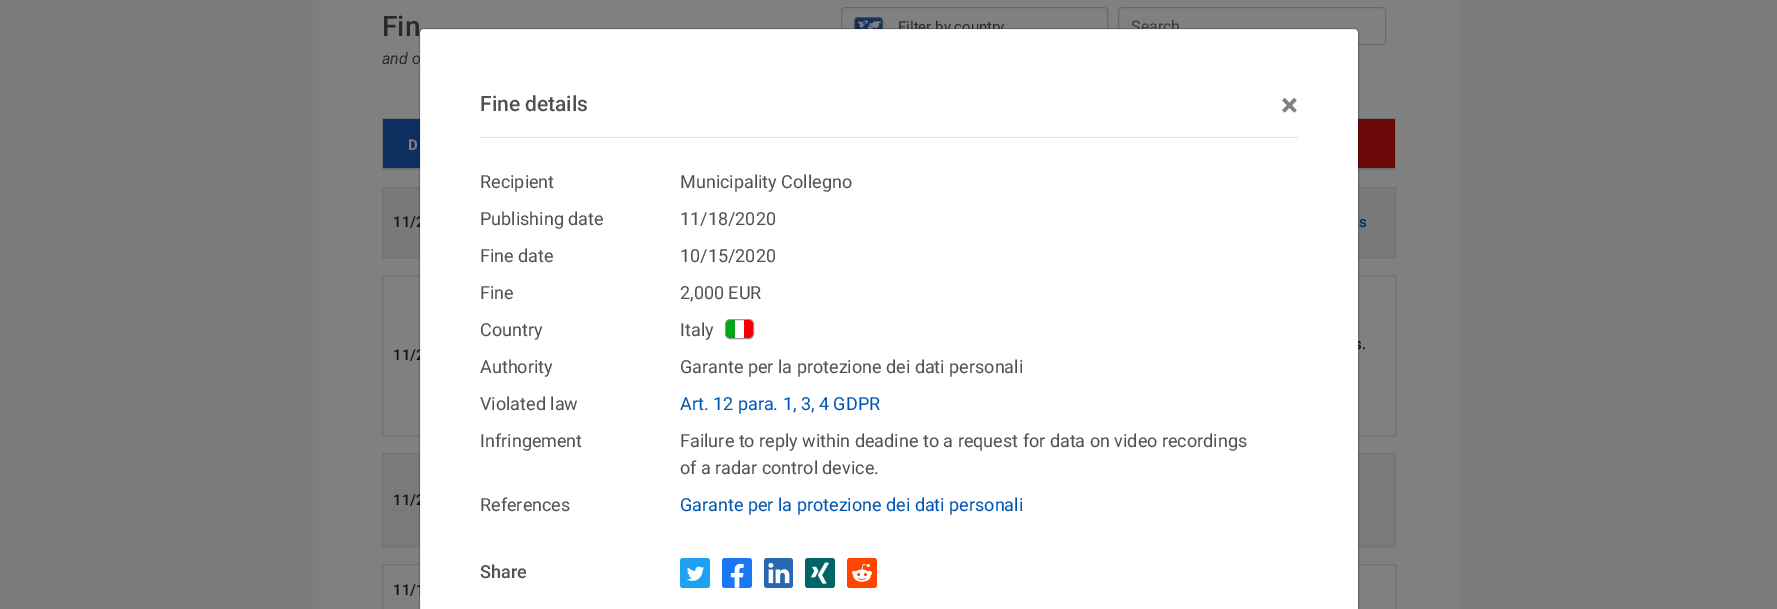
%!PS
<< /PageSize [1777 609] /PageUsesTransparency true >> setpagedevice
/mt/moveto load def
/li/lineto load def
/ct/curveto load def
/cp/closepath load def
/fl/fill load def
/st/stroke load def
/co { dup -16 bitshift 255 div exch dup -8 bitshift 255 and 255 div exch 255 and 255 div setrgbcolor } def
/fn { [ exch dup neg 0 0 3 -1 roll 0 0 ] selectfont } def
/tx { co fn moveto show } def
/bx { co rectfill } def
/al { dup .setfillconstantalpha .setstrokeconstantalpha } def
/rr { 5 dict begin { /r /h /w /y /x } { exch def } forall
  x r add y moveto x w add y 2 copy h add r arct x w add y h add x 1 index r arct
  x y h add x y r arct x y 2 copy exch w add exch r arct closepath end } def
/im { 5 dict begin { /h /w /y /x /name } { exch def } forall
  gsave x y translate w h scale
  w h 8 [w 0 0 h 0 0] name (r) file false 3 colorimage grestore end } def
0 .pushpdf14devicefilter
0 609 translate 1 -1 scale
4 setmiterlimit
0 0 1777 609 16#7B7C7C bx
319 0 1140 609 16#808080 bx
16#676A6D co
841.5 7.5 266 37 3.5 rr st
(media/1.raw) 855 18 27 11 im
16#4D4D4D co
854.5 17.5 28 19 3.5 rr st
16#676A6D co
1118.5 7.5 267 37 3.5 rr st
383 119 37 49 16#0D2F60 bx
382 118 38 1 16#6F7173 bx
382 168 38 2 16#6F7173 bx
382 118 1 52 16#6F7173 bx
1358 119 37 49 16#6A0707 bx
1358 118 38 1 16#6F7173 bx
1395 118 1 52 16#6F7173 bx
1358 168 38 2 16#6F7173 bx
383 188 1012 69 16#797979 bx
16#6F7173 co
382.5 187.5 97 70 rectstroke
912.5 187.5 483 70 rectstroke
912.5 275.5 483 160 rectstroke
382.5 275.5 97 160 rectstroke
383 454 1012 92 16#7A7A7A bx
16#6F7173 co
382.5 453.5 97 93 rectstroke
912.5 453.5 483 93 rectstroke
382.5 564.5 97 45 rectstroke
912.5 564.5 483 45 rectstroke
(Fin) 382 36 /Roboto-Medium 28 16#292929 tx
(and o) 382 64 /Roboto-Italic 16 16#292929 tx
(Filter by country) 898 32 /Roboto-Regular 15 16#292929 tx
(Search) 1131 32 /Roboto-Regular 16 16#363B3F tx
(D) 408 150 /Roboto-Bold 15 16#808080 tx
(11/2) 393 227 /Roboto-Medium 15 16#111315 tx
(s) 1359 227 /Roboto-Medium 15 16#002B5A tx
(s.) 1354 349 /Roboto-Medium 15 16#111315 tx
(11/2) 393 360 /Roboto-Medium 15 16#111315 tx
(11/2) 393 505 /Roboto-Medium 15 16#111315 tx
(11/1) 393 595 /Roboto-Medium 15 16#111315 tx
16#FFFFFF co
424 29 mt 1354 29 li 1356 29 1358 31 1358 33 ct 1358 609 li 420 609 li 420 33 li 420 31 422 29 424 29 ct cp fl
0.2 al
16#000000 co
419.5 28.5 939 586 4.5 rr st
1 al
480 137 818 1 16#DEE2E6 bx
(Fine details) 480 111 /Roboto-Medium 21 16#515151 tx
(×) 1281 116 /Roboto-Bold 32 16#808080 tx
(Recipient) 480 188 /Roboto-Regular 18 16#515151 tx
(Municipality Collegno) 680 188 /Roboto-Regular 18 16#515151 tx
(Publishing date) 480 225 /Roboto-Regular 18 16#515151 tx
(11/18/2020) 680 225 /Roboto-Regular 18 16#515151 tx
(Fine date) 480 262 /Roboto-Regular 18 16#515151 tx
(10/15/2020) 680 262 /Roboto-Regular 18 16#515151 tx
(Fine) 480 299 /Roboto-Regular 18 16#515151 tx
(2,000 EUR) 680 299 /Roboto-Regular 18 16#515151 tx
(Country) 480 336 /Roboto-Regular 18 16#515151 tx
(Italy) 680 336 /Roboto-Regular 18 16#515151 tx
16#999999 co
725.5 319.5 28 19 4.5 rr st
16#01A616 co
730 320 mt 735 320 li 735 338 li 730 338 li 728 338 726 336 726 334 ct 726 324 li 726 322 728 320 730 320 ct cp fl
16#F30004 co
744 320 mt 749 320 li 751 320 753 322 753 324 ct 753 334 li 753 336 751 338 749 338 ct 744 338 li cp fl
(Authority) 480 373 /Roboto-Regular 18 16#515151 tx
(Garante per la protezione dei dati personali) 680 373 /Roboto-Regular 18 16#515151 tx
(Violated law) 480 410 /Roboto-Regular 18 16#515151 tx
(Art. 12 para. 1, 3, 4 GDPR) 680 410 /Roboto-Regular 18 16#0056B3 tx
(Infringement) 480 447 /Roboto-Regular 18 16#515151 tx
(Failure to reply within deadine to a request for data on video recordings) 680 447 /Roboto-Regular 18 16#515151 tx
(of a radar control device.) 680 474 /Roboto-Regular 18 16#515151 tx
(References) 480 511 /Roboto-Regular 18 16#515151 tx
(Garante per la protezione dei dati personali) 680 511 /Roboto-Regular 18 16#0056B3 tx
(Share) 480 578 /Roboto-Medium 18 16#515151 tx
16#1DA1F2 co
680 558 30 30 3 rr fl
(media/2.raw) 686 566 19 15 im
16#1977F3 co
722 558 30 30 3 rr fl
(media/3.raw) 730 563 14 25 im
16#2867B2 co
764 558 29 30 3 rr fl
(media/4.raw) 768 563 22 21 im
16#006567 co
805 558 30 30 3 rr fl
(media/5.raw) 811 562 18 22 im
16#FF4500 co
847 558 30 30 3 rr fl
(media/6.raw) 852 564 20 18 im
.poppdf14devicefilter showpage
